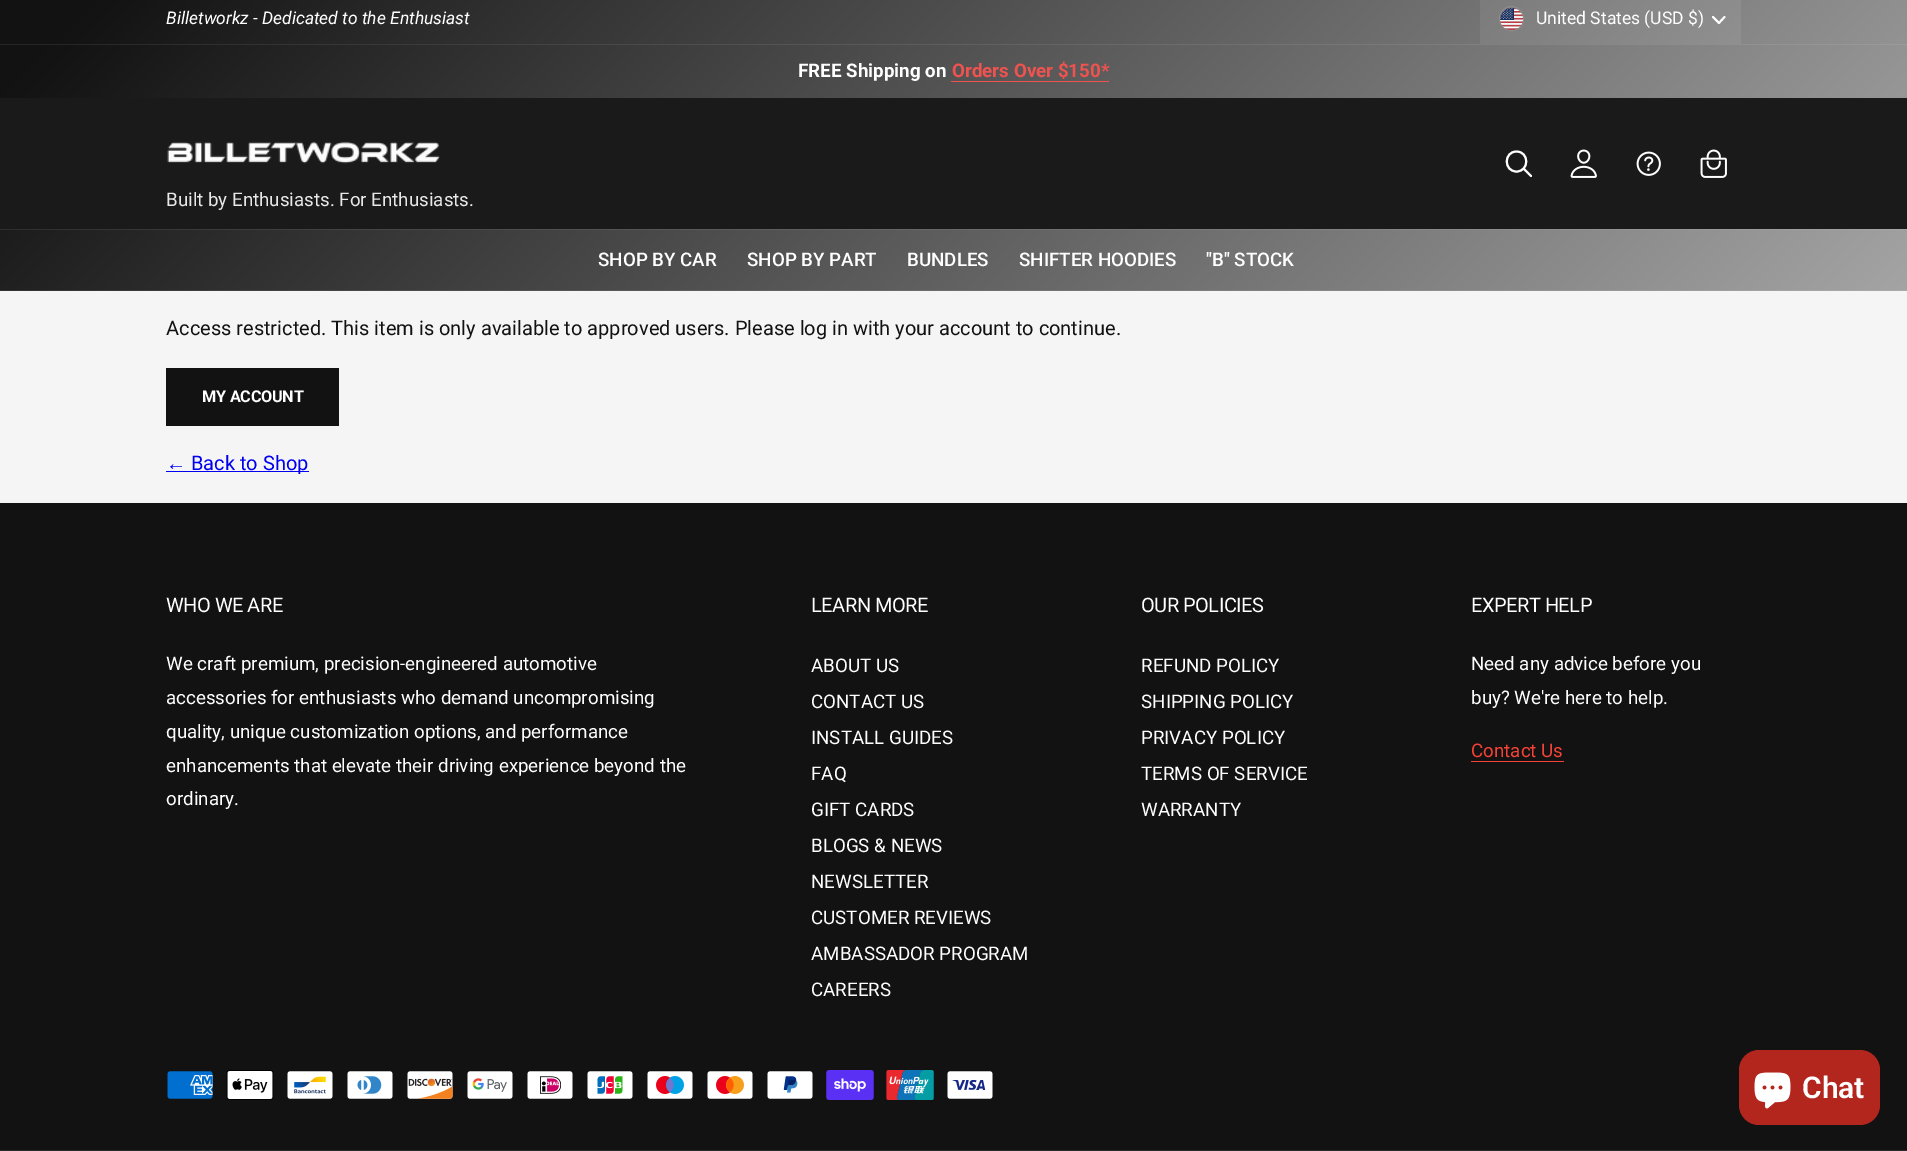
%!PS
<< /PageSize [1907 1151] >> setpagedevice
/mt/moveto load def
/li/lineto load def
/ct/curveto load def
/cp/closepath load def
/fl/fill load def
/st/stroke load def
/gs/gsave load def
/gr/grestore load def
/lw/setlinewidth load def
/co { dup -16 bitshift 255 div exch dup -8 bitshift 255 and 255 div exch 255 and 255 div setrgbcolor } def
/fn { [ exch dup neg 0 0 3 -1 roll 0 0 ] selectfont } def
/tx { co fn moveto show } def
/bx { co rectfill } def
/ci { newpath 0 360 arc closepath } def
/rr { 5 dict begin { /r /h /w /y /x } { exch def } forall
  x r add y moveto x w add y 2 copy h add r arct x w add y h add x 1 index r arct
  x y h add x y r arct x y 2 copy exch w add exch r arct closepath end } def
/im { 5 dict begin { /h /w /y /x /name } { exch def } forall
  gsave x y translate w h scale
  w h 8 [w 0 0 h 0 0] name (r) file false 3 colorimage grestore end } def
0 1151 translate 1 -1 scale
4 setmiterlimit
0 0 1907 1151 16#F5F5F5 bx
gs 0 0 mt 1907 0 li 1907 44 li 0 44 li cp clip newpath
<< /ShadingType 2 /ColorSpace /DeviceRGB /Coords [189 -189 1718 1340] /Extend [true true] /Function << /FunctionType 3 /Domain [0 1] /Functions [<< /FunctionType 2 /Domain [0 1] /C0 [.071 .071 .071] /C1 [.071 .071 .071] /N 1 >> << /FunctionType 2 /Domain [0 1] /C0 [.071 .071 .071] /C1 [.878 .878 .878] /N 1 >>] /Bounds [.03] /Encode [0 1 0 1] >> >> shfill gr
gs 1480 0 mt 1741 0 li 1741 44 li 1480 44 li cp clip newpath
<< /ShadingType 2 /ColorSpace /DeviceRGB /Coords [189 -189 1718 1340] /Extend [true true] /Function << /FunctionType 3 /Domain [0 1] /Functions [<< /FunctionType 2 /Domain [0 1] /C0 [.137 .137 .137] /C1 [.137 .137 .137] /N 1 >> << /FunctionType 2 /Domain [0 1] /C0 [.137 .137 .137] /C1 [.886 .886 .886] /N 1 >>] /Bounds [.03] /Encode [0 1 0 1] >> >> shfill gr
gs 0 44 mt 1907 44 li 1907 45 li 0 45 li cp clip newpath
<< /ShadingType 2 /ColorSpace /DeviceRGB /Coords [189 -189 1718 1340] /Extend [true true] /Function << /FunctionType 3 /Domain [0 1] /Functions [<< /FunctionType 2 /Domain [0 1] /C0 [.145 .145 .145] /C1 [.145 .145 .145] /N 1 >> << /FunctionType 2 /Domain [0 1] /C0 [.145 .145 .145] /C1 [.886 .886 .886] /N 1 >>] /Bounds [.03] /Encode [0 1 0 1] >> >> shfill gr
16#8C8C8C co
1511.5 18.5 12 ci st
(media/1.raw) 1500 8 23 22 im
16#FFFFFF co
1.9 lw
1 setlinecap
1 setlinejoin
1713 17 mt 1719 23 li 1724.5 17 li st
gs 0 45 mt 1907 45 li 1907 98 li 0 98 li cp clip newpath
<< /ShadingType 2 /ColorSpace /DeviceRGB /Coords [189 -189 1718 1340] /Extend [true true] /Function << /FunctionType 3 /Domain [0 1] /Functions [<< /FunctionType 2 /Domain [0 1] /C0 [.071 .071 .071] /C1 [.071 .071 .071] /N 1 >> << /FunctionType 2 /Domain [0 1] /C0 [.071 .071 .071] /C1 [.878 .878 .878] /N 1 >>] /Bounds [.03] /Encode [0 1 0 1] >> >> shfill gr
951 81 158 1 16#EF5350 bx
0 98 1907 131 16#1A1A1A bx
16#FFFFFF co
2 lw
0 setlinecap
0 setlinejoin
1516.5 151.5 mt 1503.5 151.5 1503.5 171.5 1516.5 171.5 ct 1529.5 171.5 1529.5 151.5 1516.5 151.5 ct cp st
1 setlinecap
1524 169 mt 1531 176 li st
(media/2.raw) 1570 149 27 29 im
(media/3.raw) 1636 151 25 25 im
(media/4.raw) 1700 149 27 29 im
(media/5.raw) 167 141 273 23 im
gs 0 230 mt 1907 230 li 1907 290 li 0 290 li cp clip newpath
<< /ShadingType 2 /ColorSpace /DeviceRGB /Coords [189 -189 1718 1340] /Extend [true true] /Function << /FunctionType 3 /Domain [0 1] /Functions [<< /FunctionType 2 /Domain [0 1] /C0 [.071 .071 .071] /C1 [.071 .071 .071] /N 1 >> << /FunctionType 2 /Domain [0 1] /C0 [.071 .071 .071] /C1 [.878 .878 .878] /N 1 >>] /Bounds [.03] /Encode [0 1 0 1] >> >> shfill gr
gs 0 290 mt 1907 290 li 1907 291 li 0 291 li cp clip newpath
<< /ShadingType 2 /ColorSpace /DeviceRGB /Coords [189 -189 1718 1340] /Extend [true true] /Function << /FunctionType 3 /Domain [0 1] /Functions [<< /FunctionType 2 /Domain [0 1] /C0 [.145 .145 .145] /C1 [.145 .145 .145] /N 1 >> << /FunctionType 2 /Domain [0 1] /C0 [.145 .145 .145] /C1 [.886 .886 .886] /N 1 >>] /Bounds [.03] /Encode [0 1 0 1] >> >> shfill gr
gs 0 229 mt 1907 229 li 1907 230 li 0 230 li cp clip newpath
<< /ShadingType 2 /ColorSpace /DeviceRGB /Coords [189 -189 1718 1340] /Extend [true true] /Function << /FunctionType 3 /Domain [0 1] /Functions [<< /FunctionType 2 /Domain [0 1] /C0 [.145 .145 .145] /C1 [.145 .145 .145] /N 1 >> << /FunctionType 2 /Domain [0 1] /C0 [.145 .145 .145] /C1 [.886 .886 .886] /N 1 >>] /Bounds [.03] /Encode [0 1 0 1] >> >> shfill gr
166 368 173 58 16#121212 bx
166 471 143 1 16#0000EE bx
0 503 1907 647 16#121212 bx
1471 761 93 1 16#F44336 bx
(media/6.raw) 167 1071 46 28 im
(media/7.raw) 226 1070 48 30 im
(media/8.raw) 287 1071 46 28 im
(media/9.raw) 347 1071 46 28 im
(media/10.raw) 407 1071 46 28 im
(media/11.raw) 467 1071 46 28 im
(media/12.raw) 527 1071 46 28 im
(media/13.raw) 587 1071 46 28 im
(media/14.raw) 647 1071 46 28 im
(media/15.raw) 707 1071 46 28 im
(media/16.raw) 767 1071 46 28 im
(media/17.raw) 826 1070 48 30 im
(media/18.raw) 886 1070 48 30 im
(media/19.raw) 947 1071 46 28 im
0 1150 1907 1 16#2C2C2C bx
16#B3261E co
1739 1050 141 75 20 rr fl
(media/20.raw) 1754 1072 37 37 im
(Billetworkz - Dedicated to the Enthusiast) 166 24 /Roboto-Italic 17.5 16#FFFFFF tx
(United States \(USD $\)) 1536 24 /Roboto-Regular 17.5 16#FFFFFF tx
(FREE Shipping on) 798 77 /Roboto-Bold 18.75 16#FFFFFF tx
(Orders Over $150*) 952 77 /Roboto-Bold 18.75 16#EF5350 tx
(Built by Enthusiasts. For Enthusiasts.) 166 206 /Roboto-Regular 18.75 16#E8E8E8 tx
(SHOP BY CAR) 598 266 /Roboto-Medium 18.75 16#FFFFFF tx
(SHOP BY PART) 747 266 /Roboto-Medium 18.75 16#FFFFFF tx
(BUNDLES) 907 266 /Roboto-Medium 18.75 16#FFFFFF tx
(SHIFTER HOODIES) 1019 266 /Roboto-Medium 18.75 16#FFFFFF tx
("B" STOCK) 1206 266 /Roboto-Medium 18.75 16#FFFFFF tx
(Access restricted. This item is only available to approved users. Please log in with your account to continue.) 166 335 /Roboto-Regular 20 16#121212 tx
/Roboto-Bold 16.25 fn
16#FFFFFF co
202 402 mt -.25 0 (MY ACCOUNT) ashow
(←) 166 470 /LiberationSans-Regular 20 16#0000EE tx
(Back to Shop) 191 470 /Roboto-Regular 20 16#0000EE tx
16#FFFFFF co
166 612 mt -.5 0 (WHO WE ARE) ashow
(We craft premium, precision-engineered automotive) 166 670 /Roboto-Regular 18.75 16#FFFFFF tx
(accessories for enthusiasts who demand uncompromising) 166 704 /Roboto-Regular 18.75 16#FFFFFF tx
(quality, unique customization options, and performance) 166 738 /Roboto-Regular 18.75 16#FFFFFF tx
(enhancements that elevate their driving experience beyond the) 166 772 /Roboto-Regular 18.75 16#FFFFFF tx
(ordinary.) 166 805 /Roboto-Regular 18.75 16#FFFFFF tx
/Roboto-Regular 20 fn
811 612 mt -.5 0 (LEARN MORE) ashow
(ABOUT US) 811 672 /Roboto-Regular 18.75 16#FFFFFF tx
(CONTACT US) 811 708 /Roboto-Regular 18.75 16#FFFFFF tx
(INSTALL GUIDES) 811 744 /Roboto-Regular 18.75 16#FFFFFF tx
(FAQ) 811 780 /Roboto-Regular 18.75 16#FFFFFF tx
(GIFT CARDS) 811 816 /Roboto-Regular 18.75 16#FFFFFF tx
(BLOGS & NEWS) 811 852 /Roboto-Regular 18.75 16#FFFFFF tx
(NEWSLETTER) 811 888 /Roboto-Regular 18.75 16#FFFFFF tx
(CUSTOMER REVIEWS) 811 924 /Roboto-Regular 18.75 16#FFFFFF tx
(AMBASSADOR PROGRAM) 811 960 /Roboto-Regular 18.75 16#FFFFFF tx
(CAREERS) 811 996 /Roboto-Regular 18.75 16#FFFFFF tx
/Roboto-Regular 20 fn
1141 612 mt -.5 0 (OUR POLICIES) ashow
(REFUND POLICY) 1141 672 /Roboto-Regular 18.75 16#FFFFFF tx
(SHIPPING POLICY) 1141 708 /Roboto-Regular 18.75 16#FFFFFF tx
(PRIVACY POLICY) 1141 744 /Roboto-Regular 18.75 16#FFFFFF tx
(TERMS OF SERVICE) 1141 780 /Roboto-Regular 18.75 16#FFFFFF tx
(WARRANTY) 1141 816 /Roboto-Regular 18.75 16#FFFFFF tx
/Roboto-Regular 20 fn
1471 612 mt -.5 0 (EXPERT HELP) ashow
(Need any advice before you) 1471 670 /Roboto-Regular 18.75 16#FFFFFF tx
(buy? We're here to help.) 1471 704 /Roboto-Regular 18.75 16#FFFFFF tx
(Contact Us) 1471 757 /Roboto-Regular 18.75 16#F44336 tx
(Chat) 1802 1098 /Roboto-SemiBold 30 16#FFFFFF tx
showpage
